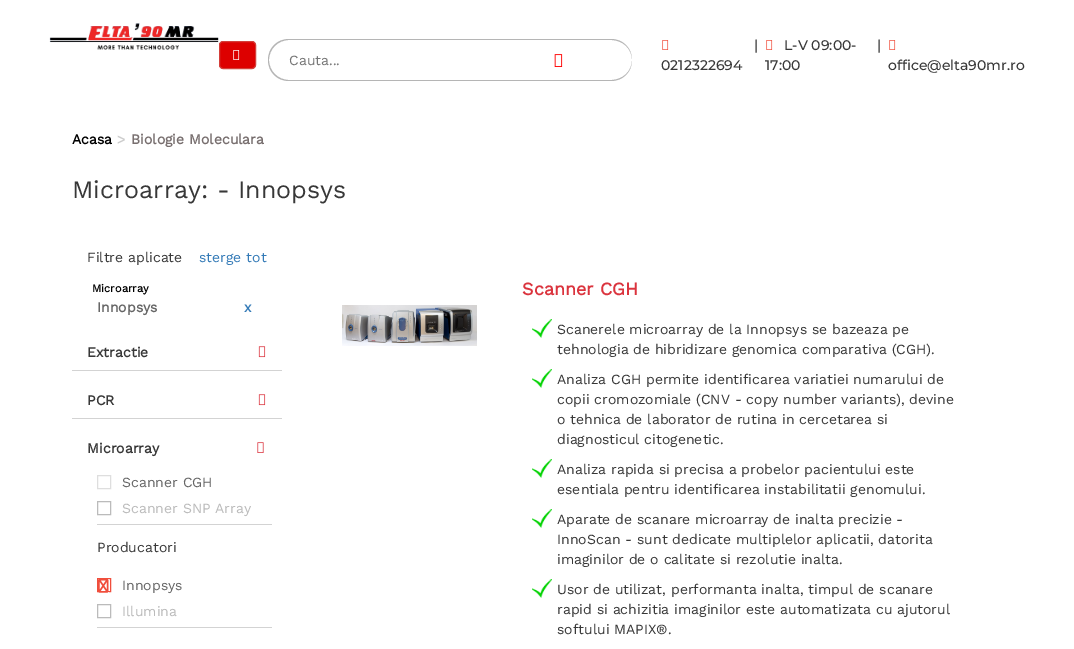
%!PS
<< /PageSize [1074 649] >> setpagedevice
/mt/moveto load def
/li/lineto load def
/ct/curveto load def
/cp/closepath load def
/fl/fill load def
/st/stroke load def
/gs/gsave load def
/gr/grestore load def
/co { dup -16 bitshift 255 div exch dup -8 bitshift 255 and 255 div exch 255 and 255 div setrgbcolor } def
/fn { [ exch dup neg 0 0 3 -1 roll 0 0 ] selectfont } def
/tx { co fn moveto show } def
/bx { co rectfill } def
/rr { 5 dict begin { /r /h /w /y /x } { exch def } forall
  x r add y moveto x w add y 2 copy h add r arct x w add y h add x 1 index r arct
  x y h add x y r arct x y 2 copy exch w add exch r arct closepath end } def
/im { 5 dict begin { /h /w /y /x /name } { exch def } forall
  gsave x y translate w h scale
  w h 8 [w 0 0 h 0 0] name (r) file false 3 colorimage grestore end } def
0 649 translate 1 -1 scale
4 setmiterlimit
0 0 1074 649 16#FFFFFF bx
(media/1.raw) 49 23 170 27 im
16#DD0000 co
219.5 41.5 36 27 3.5 rr gs fl gr
16#D43F3A co
st
(media/2.raw) 233 50 7 10 im
16#B5B5B5 co
289 39 mt 611 39 li 623 39 632 48 632 60 ct 632 72 623 81 611 81 ct 289 81 li 277 81 268 72 268 60 ct 268 48 277 39 289 39 ct cp 289 40 mt 611 40 li 623 40 632 49 632 60 ct 632 71 623 80 611 80 ct 289 80 li 278 80 269 71 269 60 ct 269 49 278 40 289 40 ct cp eofill
(media/3.raw) 554 54 9 13 im
(media/4.raw) 662 40 7 10 im
(media/4.raw) 766 40 7 10 im
(media/4.raw) 889 40 7 10 im
72 370 210 1 16#D3D3D3 bx
(media/5.raw) 258 346 8 12 im
72 418 210 1 16#D3D3D3 bx
(media/5.raw) 258 394 8 12 im
(media/6.raw) 257 442 7 11 im
16#DEDEDE co
97.5 475.5 13 13 rectstroke
16#BBBBBB co
97.5 501.5 13 13 rectstroke
97 524 175 1 16#D3D3D3 bx
16#F04E3C co
97.5 578.5 13 13 rectstroke
(media/7.raw) 98 579 11 14 im
16#BBBBBB co
97.5 604.5 13 13 rectstroke
97 627 175 1 16#D3D3D3 bx
(media/8.raw) 342 305 135 41 im
(media/9.raw) 532 319 20 19 im
(media/9.raw) 532 369 20 19 im
(media/9.raw) 532 459 20 19 im
(media/9.raw) 532 509 20 19 im
(media/9.raw) 532 579 20 19 im
(Cauta...) 289 65 /WorkSans-Regular 14 16#757575 tx
(0212322694) 661 70 /Montserrat-Thin 14 16#383838 tx
(|) 754 50 /Montserrat-Thin 14 16#383838 tx
(L-V 09:00-) 784 50 /Montserrat-Thin 14 16#383838 tx
(17:00) 765 70 /Montserrat-Thin 14 16#383838 tx
(|) 877 50 /Montserrat-Thin 14 16#383838 tx
(office@elta90mr.ro) 888 70 /Montserrat-Thin 14 16#383838 tx
(Acasa) 72 144 /WorkSans-Bold 14 16#000000 tx
(>) 117 144 /WorkSans-Bold 14 16#CCCCCC tx
(Biologie Moleculara) 131 144 /WorkSans-Bold 14 16#786F6F tx
(Microarray: - Innopsys) 72 198 /WorkSans-Regular 25 16#383838 tx
(Filtre aplicate) 87 262 /WorkSans-Regular 14 16#383838 tx
(sterge tot) 199 262 /WorkSans-Regular 14 16#337AB7 tx
(Microarray) 92 292 /WorkSans-Bold 11 16#000000 tx
(Innopsys) 97 312 /WorkSans-Bold 14 16#666666 tx
(x) 244 312 /WorkSans-Bold 14 16#337AB7 tx
(Extractie) 87 357 /WorkSans-Bold 14 16#383838 tx
(PCR) 87 405 /WorkSans-Bold 14 16#383838 tx
(Microarray) 87 453 /WorkSans-Bold 14 16#383838 tx
(Scanner CGH) 122 487 /WorkSans-Regular 14 16#666666 tx
(Scanner SNP Array) 122 513 /WorkSans-Regular 14 16#BBBBBB tx
(Producatori) 97 552 /WorkSans-Regular 14 16#383838 tx
(Innopsys) 122 590 /WorkSans-Regular 14 16#666666 tx
(Illumina) 122 616 /WorkSans-Regular 14 16#BBBBBB tx
(Scanner CGH) 522 295 /WorkSans-Bold 18 16#DB343E tx
(Scanerele microarray de la Innopsys se bazeaza pe) 557 334 /WorkSans-Regular 14 16#383838 tx
(tehnologia de hibridizare genomica comparativa \(CGH\).) 557 354 /WorkSans-Regular 14 16#383838 tx
(Analiza CGH permite identificarea variatiei numarului de) 557 384 /WorkSans-Regular 14 16#383838 tx
(copii cromozomiale \(CNV - copy number variants\), devine) 557 404 /WorkSans-Regular 14 16#383838 tx
(o tehnica de laborator de rutina in cercetarea si) 557 424 /WorkSans-Regular 14 16#383838 tx
(diagnosticul citogenetic.) 557 444 /WorkSans-Regular 14 16#383838 tx
(Analiza rapida si precisa a probelor pacientului este) 557 474 /WorkSans-Regular 14 16#383838 tx
(esentiala pentru identificarea instabilitatii genomului.) 557 494 /WorkSans-Regular 14 16#383838 tx
(Aparate de scanare microarray de inalta precizie -) 557 524 /WorkSans-Regular 14 16#383838 tx
(InnoScan - sunt dedicate multiplelor aplicatii, datorita) 557 544 /WorkSans-Regular 14 16#383838 tx
(imaginilor de o calitate si rezolutie inalta.) 557 564 /WorkSans-Regular 14 16#383838 tx
(Usor de utilizat, performanta inalta, timpul de scanare) 557 594 /WorkSans-Regular 14 16#383838 tx
(rapid si achizitia imaginilor este automatizata cu ajutorul) 557 614 /WorkSans-Regular 14 16#383838 tx
(softului MAPIX®.) 557 634 /WorkSans-Regular 14 16#383838 tx
showpage
